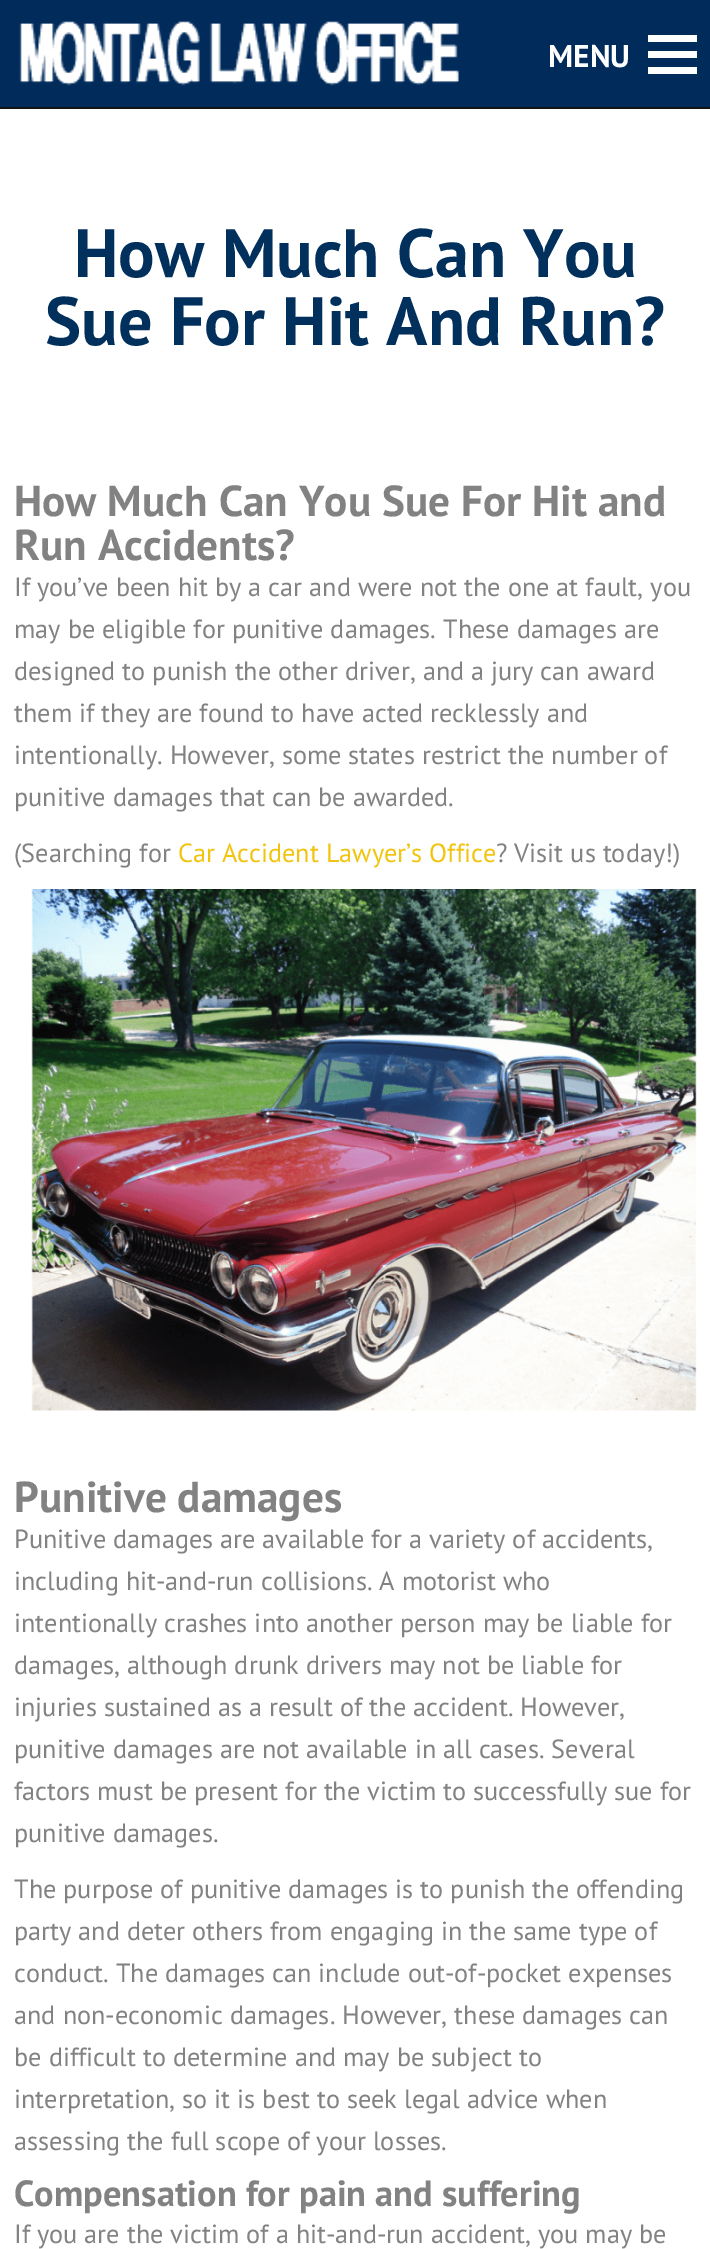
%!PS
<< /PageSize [710 2249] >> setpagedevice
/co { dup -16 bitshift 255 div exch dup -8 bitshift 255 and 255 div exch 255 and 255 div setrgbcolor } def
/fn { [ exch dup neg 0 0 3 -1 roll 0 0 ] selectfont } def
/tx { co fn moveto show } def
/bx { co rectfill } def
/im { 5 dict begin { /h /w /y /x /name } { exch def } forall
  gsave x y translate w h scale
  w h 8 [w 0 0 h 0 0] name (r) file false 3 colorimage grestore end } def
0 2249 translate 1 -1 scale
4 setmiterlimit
0 0 710 2249 16#FFFFFF bx
0 0 710 107 16#002B5B bx
0 107 710 2 16#141414 bx
(media/1.raw) 19 21 440 65 im
648 35 49 7 16#FFFFFF bx
648 51 49 7 16#FFFFFF bx
648 67 49 7 16#FFFFFF bx
(media/2.raw) 31 889 666 522 im
(MENU) 548 67 /PTSans-Bold 31.5 16#FFFFFF tx
(How Much Can You) 74 277 /PTSans-Bold 68.25 16#02305D tx
(Sue For Hit And Run?) 45 345 /PTSans-Bold 68.25 16#02305D tx
(How Much Can You Sue For Hit and) 14 516 /PTSans-Bold 43.25 16#828282 tx
(Run Accidents?) 14 560 /PTSans-Bold 43.25 16#828282 tx
(If you’ve been hit by a car and were not the one at fault, you) 14 596 /PTSans-Regular 26.25 16#828282 tx
(may be eligible for punitive damages. These damages are) 14 638 /PTSans-Regular 26.25 16#828282 tx
(designed to punish the other driver, and a jury can award) 14 680 /PTSans-Regular 26.25 16#828282 tx
(them if they are found to have acted recklessly and) 14 722 /PTSans-Regular 26.25 16#828282 tx
(intentionally. However, some states restrict the number of) 14 764 /PTSans-Regular 26.25 16#828282 tx
(punitive damages that can be awarded.) 14 806 /PTSans-Regular 26.25 16#828282 tx
(\(Searching for) 14 862 /PTSans-Regular 26.25 16#828282 tx
(Car Accident Lawyer’s Office) 178 862 /PTSans-Regular 26.25 16#F1C40F tx
(? Visit us today!\)) 496 862 /PTSans-Regular 26.25 16#828282 tx
(Punitive damages) 14 1512 /PTSans-Bold 43.25 16#828282 tx
(Punitive damages are available for a variety of accidents,) 14 1548 /PTSans-Regular 26.25 16#828282 tx
(including hit-and-run collisions. A motorist who) 14 1590 /PTSans-Regular 26.25 16#828282 tx
(intentionally crashes into another person may be liable for) 14 1632 /PTSans-Regular 26.25 16#828282 tx
(damages, although drunk drivers may not be liable for) 14 1674 /PTSans-Regular 26.25 16#828282 tx
(injuries sustained as a result of the accident. However,) 14 1716 /PTSans-Regular 26.25 16#828282 tx
(punitive damages are not available in all cases. Several) 14 1758 /PTSans-Regular 26.25 16#828282 tx
(factors must be present for the victim to successfully sue for) 14 1800 /PTSans-Regular 26.25 16#828282 tx
(punitive damages.) 14 1842 /PTSans-Regular 26.25 16#828282 tx
(The purpose of punitive damages is to punish the offending) 14 1898 /PTSans-Regular 26.25 16#828282 tx
(party and deter others from engaging in the same type of) 14 1940 /PTSans-Regular 26.25 16#828282 tx
(conduct. The damages can include out-of-pocket expenses) 14 1982 /PTSans-Regular 26.25 16#828282 tx
(and non-economic damages. However, these damages can) 14 2024 /PTSans-Regular 26.25 16#828282 tx
(be difficult to determine and may be subject to) 14 2066 /PTSans-Regular 26.25 16#828282 tx
(interpretation, so it is best to seek legal advice when) 14 2108 /PTSans-Regular 26.25 16#828282 tx
(assessing the full scope of your losses.) 14 2150 /PTSans-Regular 26.25 16#828282 tx
(Compensation for pain and suffering) 14 2206 /PTSans-Bold 36.4 16#828282 tx
(If you are the victim of a hit-and-run accident, you may be) 14 2243 /PTSans-Regular 26.25 16#828282 tx
showpage
